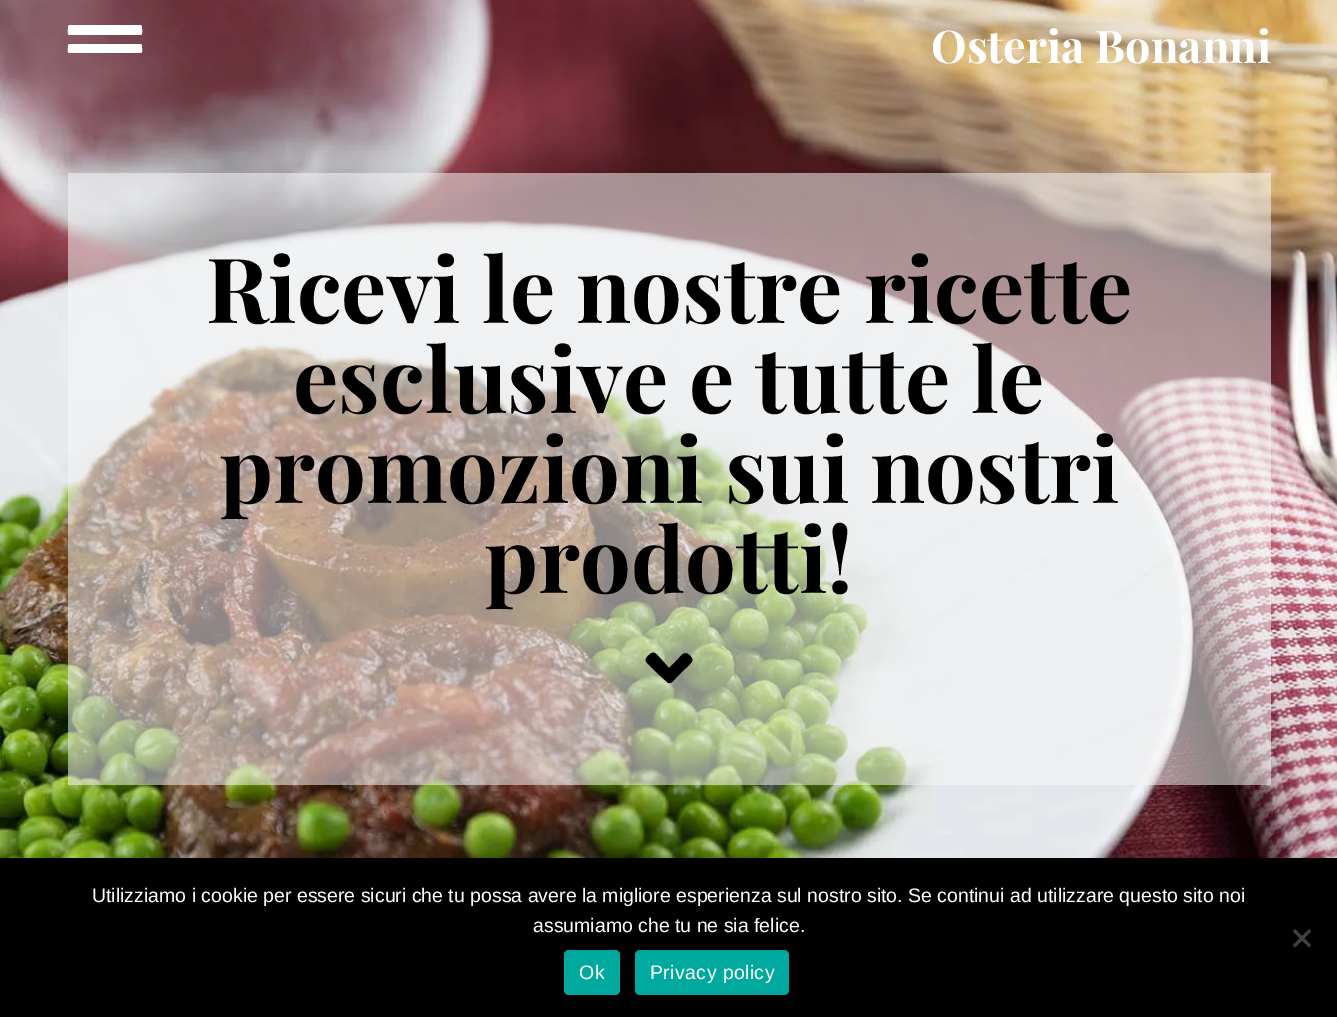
%!PS
<< /PageSize [1337 1017] /PageUsesTransparency true >> setpagedevice
/mt/moveto load def
/li/lineto load def
/ct/curveto load def
/cp/closepath load def
/fl/fill load def
/co { dup -16 bitshift 255 div exch dup -8 bitshift 255 and 255 div exch 255 and 255 div setrgbcolor } def
/fn { [ exch dup neg 0 0 3 -1 roll 0 0 ] selectfont } def
/tx { co fn moveto show } def
/bx { co rectfill } def
/al { dup .setfillconstantalpha .setstrokeconstantalpha } def
/rr { 5 dict begin { /r /h /w /y /x } { exch def } forall
  x r add y moveto x w add y 2 copy h add r arct x w add y h add x 1 index r arct
  x y h add x y r arct x y 2 copy exch w add exch r arct closepath end } def
/im { 5 dict begin { /h /w /y /x /name } { exch def } forall
  gsave x y translate w h scale
  w h 8 [w 0 0 h 0 0] name (r) file false 3 colorimage grestore end } def
0 .pushpdf14devicefilter
0 1017 translate 1 -1 scale
4 setmiterlimit
0 0 1337 1017 16#FFFFFF bx
(media/1.raw) 0 0 1337 858 im
140 44 mt 142 44 142 46 142 48 ct 142 50 143 53 140 53 ct 70 53 li 67 53 68 50 68 48 ct 68 46 68 44 70 44 ct cp 140 25 mt 142 25 142 27 142 29 ct 142 31 143 35 140 35 ct 70 35 li 67 35 68 31 68 29 ct 68 27 68 25 70 25 ct cp fl
0.54 al
68 173 1203 612 16#F6F6F6 bx
1 al
16#000000 co
667 682 mt 653 669 li 647 662 642 661 649 655 ct 654 650 656 654 660 658 ct 669 668 li 679 658 li 680 657 684 651 688 654 ct 696 660 692 662 685 669 ct 675 679 li 673 681 670 685 667 682 ct cp fl
0 858 1337 159 16#000000 bx
16#404040 co
1309 929 mt 1311 931.5 li 1295 947.5 li 1293 945 li cp fl
1293 931.5 mt 1295 929 li 1311 945 li 1309 947.5 li cp fl
16#00A99D co
564 950 56 45 5 rr fl
635 950 154 45 5 rr fl
(Osteria Bonanni) 931 63 /PlayfairDisplay-Bold 45 16#FFFFFF tx
(Ricevi le nostre ricette) 206 323 /PlayfairDisplay-Bold 90 16#000000 tx
(esclusive e tutte le) 293 413 /PlayfairDisplay-Bold 90 16#000000 tx
(promozioni sui nostri) 219 503 /PlayfairDisplay-Bold 90 16#000000 tx
(prodotti!) 484 593 /PlayfairDisplay-Bold 90 16#000000 tx
(Utilizziamo i cookie per essere sicuri che tu possa avere la migliore esperienza sul nostro sito. Se continui ad utilizzare questo sito noi) 92 902 /LiberationSans-Regular 19.5 16#FFFFFF tx
(assumiamo che tu ne sia felice.) 533 932 /LiberationSans-Regular 19.5 16#FFFFFF tx
579 979 mt .4 0 (Ok) ashow
650 979 mt .4 0 (Privacy policy) ashow
.poppdf14devicefilter showpage
